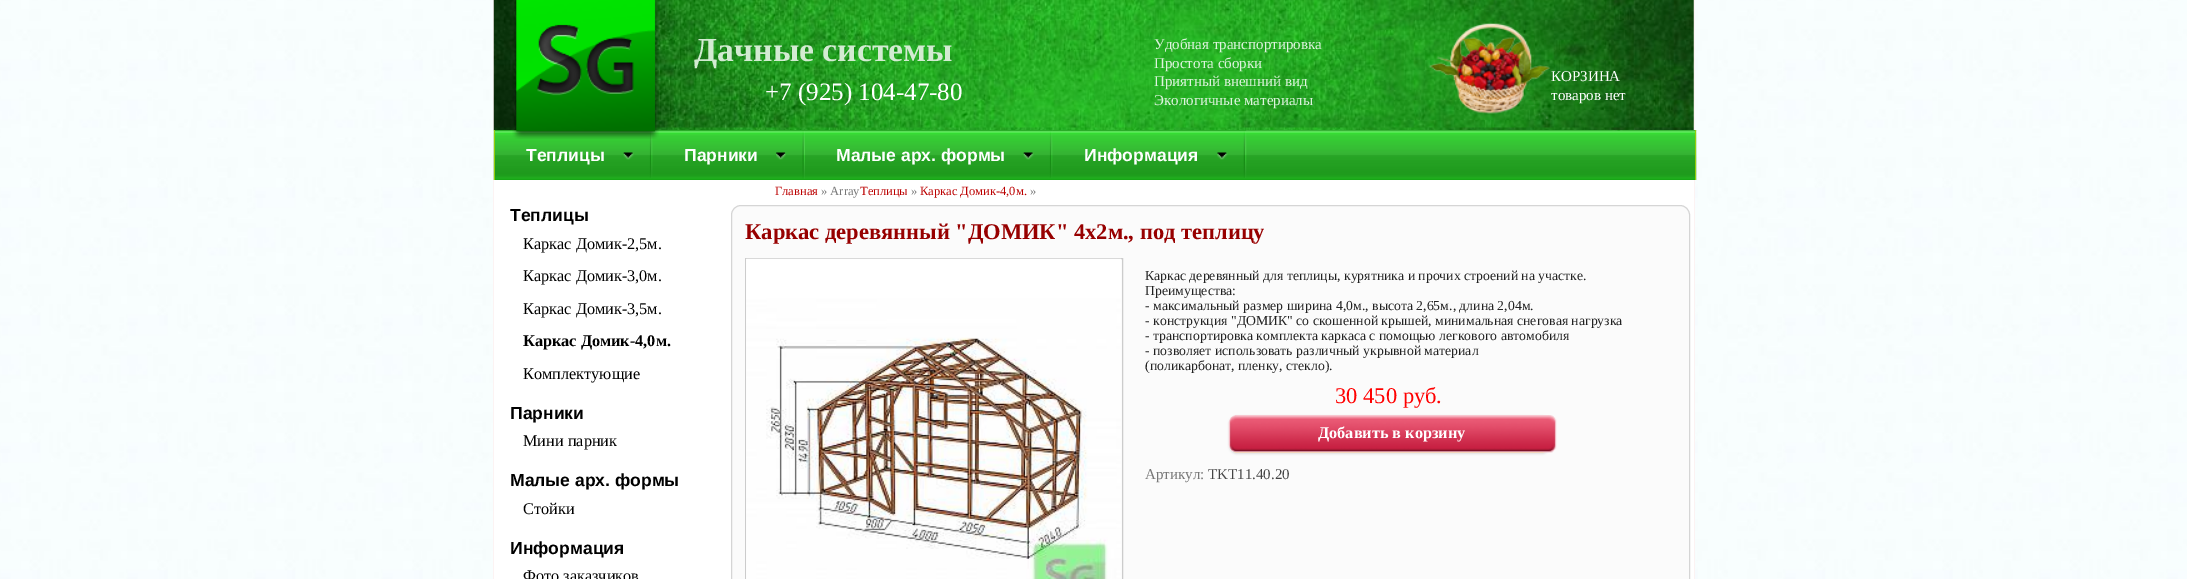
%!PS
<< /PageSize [2187 579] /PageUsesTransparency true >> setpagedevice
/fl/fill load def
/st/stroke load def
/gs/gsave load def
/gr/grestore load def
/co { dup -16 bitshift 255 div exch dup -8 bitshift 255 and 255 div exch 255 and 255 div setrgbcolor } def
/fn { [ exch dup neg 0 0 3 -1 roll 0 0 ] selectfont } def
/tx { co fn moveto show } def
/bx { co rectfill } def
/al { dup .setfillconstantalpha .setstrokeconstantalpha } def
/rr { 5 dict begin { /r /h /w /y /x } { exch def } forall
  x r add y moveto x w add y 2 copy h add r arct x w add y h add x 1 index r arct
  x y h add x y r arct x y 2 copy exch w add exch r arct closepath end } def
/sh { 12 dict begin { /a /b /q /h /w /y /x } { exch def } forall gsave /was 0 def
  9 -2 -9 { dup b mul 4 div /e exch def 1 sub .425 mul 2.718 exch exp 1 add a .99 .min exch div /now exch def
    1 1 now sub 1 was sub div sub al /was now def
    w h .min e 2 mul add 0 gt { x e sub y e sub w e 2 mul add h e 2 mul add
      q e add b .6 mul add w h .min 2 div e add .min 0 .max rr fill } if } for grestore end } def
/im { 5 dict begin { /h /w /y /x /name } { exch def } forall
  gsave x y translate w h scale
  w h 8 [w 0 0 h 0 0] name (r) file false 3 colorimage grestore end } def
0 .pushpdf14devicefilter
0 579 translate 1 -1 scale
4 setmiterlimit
0 0 2187 579 16#FFFFFF bx
(media/1.raw) 0 0 2187 579 im
494 0 1200 579 16#FFFFFF bx
1694 0 1 579 16#FCF3F3 bx
493 0 1 579 16#FCF3F3 bx
(media/2.raw) 493 0 1201 130 im
(media/5.raw) 493 130 1204 50 im
(media/6.raw) 495 130 158 48 im
(media/8.raw) 652 130 153 49 im
(media/3.raw) 512 0 147 139 im
(media/4.raw) 1428 23 123 96 im
1695 130 1 50 16#94CD0B bx
494 130 1 50 16#94CD0B bx
(media/7.raw) 623 152 11 8 im
(media/9.raw) 776 152 10 8 im
(media/10.raw) 805 130 248 48 im
(media/11.raw) 1023 152 11 8 im
(media/12.raw) 1052 130 195 48 im
(media/13.raw) 1217 152 11 8 im
16#FBFBFB co
731.5 205.5 958 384 9.5 rr gs fl gr
16#D5D5D5 co
st
16#CCCCCC co
745.5 258.5 377 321 rectstroke
(media/14.raw) 746 258 375 321 im
16#DDDDDD co
1229 416 321 38 8 1 1 sh
(media/15.raw) 1228 415 317 38 im
(media/16.raw) 1235 415 322 38 im
(Дачные системы) 694 61 /LiberationSerif-Bold 33.75 16#D3EBD2 tx
(Удобная транспортировка) 1154 49 /LiberationSerif-Regular 15 16#DEF3DE tx
(Простота сборки) 1154 68 /LiberationSerif-Regular 15 16#DEF3DE tx
(Приятный внешний вид) 1154 86 /LiberationSerif-Regular 15 16#DEF3DE tx
(Экологичные материалы) 1154 105 /LiberationSerif-Regular 15 16#DEF3DE tx
(КОРЗИНА) 1551 81 /LiberationSerif-Regular 15 16#FFFFFF tx
(товаров нет) 1551 100 /LiberationSerif-Regular 15 16#FFFFFF tx
(+7 \(925\) 104-47-80) 765 100 /LiberationSerif-Regular 25 16#FFFFFF tx
(Теплицы) 526 161 /LiberationSans-Bold 17.5 16#FFFFFF tx
(Парники) 684 161 /LiberationSans-Bold 17.5 16#FFFFFF tx
(Малые арх. формы) 836 161 /LiberationSans-Bold 17.5 16#FFFFFF tx
(Информация) 1084 161 /LiberationSans-Bold 17.5 16#FFFFFF tx
(Главная) 775 195 /LiberationSerif-Regular 12.5 16#BB0000 tx
(» Array) 821 195 /LiberationSerif-Regular 12.5 16#777777 tx
(Теплицы) 860 195 /LiberationSerif-Regular 12.5 16#BB0000 tx
(») 911 195 /LiberationSerif-Regular 12.5 16#777777 tx
(Каркас Домик-4,0м.) 920 195 /LiberationSerif-Regular 12.5 16#BB0000 tx
(») 1030 195 /LiberationSerif-Regular 12.5 16#777777 tx
(Теплицы) 510 221 /LiberationSans-Bold 17.5 16#000000 tx
(Каркас Домик-2,5м.) 523 249 /LiberationSerif-Regular 16.25 16#000000 tx
(Каркас Домик-3,0м.) 523 281 /LiberationSerif-Regular 16.25 16#000000 tx
(Каркас Домик-3,5м.) 523 314 /LiberationSerif-Regular 16.25 16#000000 tx
(Каркас Домик-4,0м.) 523 346 /LiberationSerif-Bold 16.25 16#000000 tx
(Комплектующие) 523 379 /LiberationSerif-Regular 16.25 16#000000 tx
(Парники) 510 419 /LiberationSans-Bold 17.5 16#000000 tx
(Мини парник) 523 446 /LiberationSerif-Regular 16.25 16#000000 tx
(Малые арх. формы) 510 486 /LiberationSans-Bold 17.5 16#000000 tx
(Стойки) 523 514 /LiberationSerif-Regular 16.25 16#000000 tx
(Информация) 510 554 /LiberationSans-Bold 17.5 16#000000 tx
(Фото заказчиков) 523 581 /LiberationSerif-Regular 16.25 16#000000 tx
(Каркас деревянный "ДОМИК" 4х2м., под теплицу) 745 239 /LiberationSerif-Bold 22.5 16#970000 tx
(Каркас деревянный для теплицы, курятника и прочих строений на участке.) 1145 280 /LiberationSerif-Regular 13.75 16#222222 tx
(Преимущества:) 1145 295 /LiberationSerif-Regular 13.75 16#222222 tx
(- максимальный размер ширина 4,0м., высота 2,65м., длина 2,04м.) 1145 310 /LiberationSerif-Regular 13.75 16#222222 tx
(- конструкция "ДОМИК" со скошенной крышей, минимальная снеговая нагрузка) 1145 325 /LiberationSerif-Regular 13.75 16#222222 tx
(- транспортировка комплекта каркаса с помощью легкового автомобиля) 1145 340 /LiberationSerif-Regular 13.75 16#222222 tx
(- позволяет использовать различный укрывной материал) 1145 355 /LiberationSerif-Regular 13.75 16#222222 tx
(\(поликарбонат, пленку, стекло\).) 1145 370 /LiberationSerif-Regular 13.75 16#222222 tx
(30 450 руб.) 1335 403 /LiberationSerif-Regular 22.5 16#FF0000 tx
(Добавить в корзину) 1318 438 /LiberationSerif-Bold 16.25 16#FFFFFF tx
(Артикул:) 1145 479 /LiberationSerif-Regular 15 16#777777 tx
(TKT11.40.20) 1208 479 /LiberationSerif-Regular 15 16#444444 tx
.poppdf14devicefilter showpage
